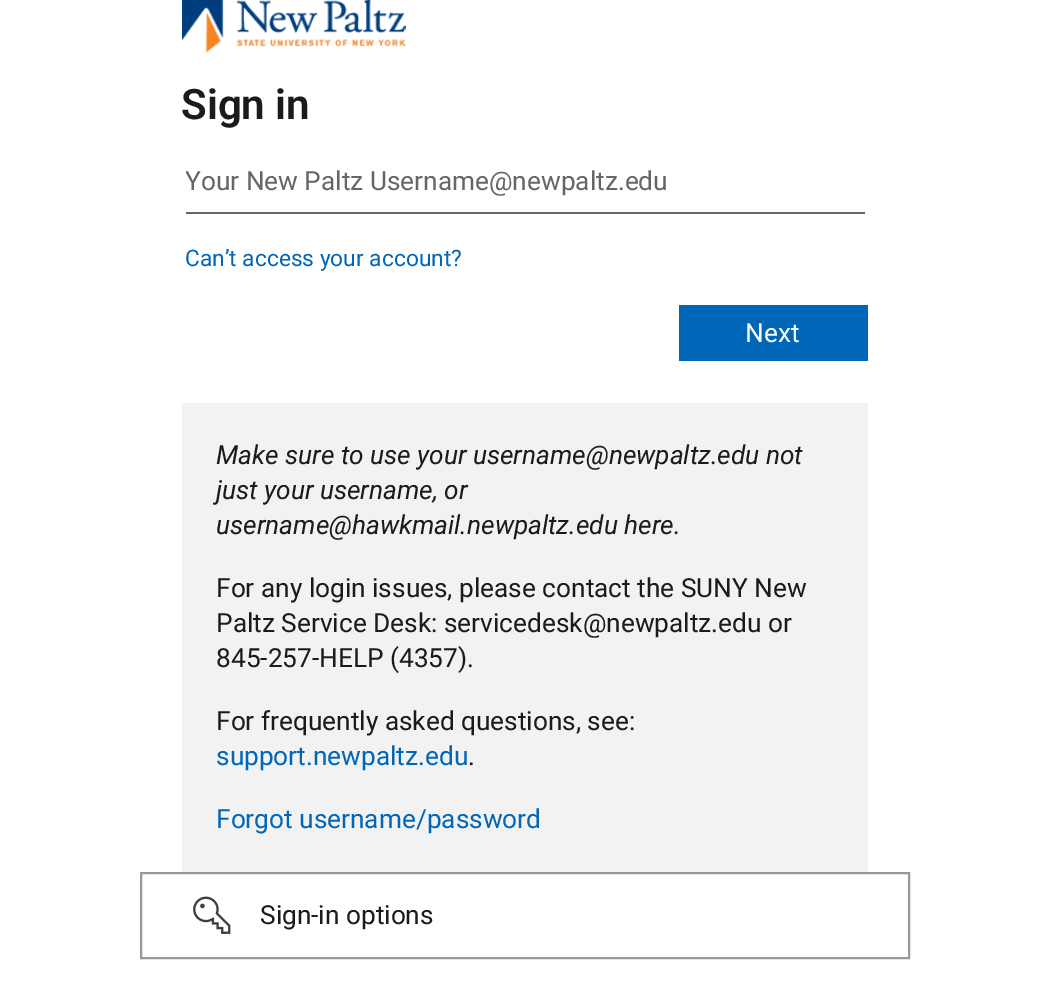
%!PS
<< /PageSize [1048 990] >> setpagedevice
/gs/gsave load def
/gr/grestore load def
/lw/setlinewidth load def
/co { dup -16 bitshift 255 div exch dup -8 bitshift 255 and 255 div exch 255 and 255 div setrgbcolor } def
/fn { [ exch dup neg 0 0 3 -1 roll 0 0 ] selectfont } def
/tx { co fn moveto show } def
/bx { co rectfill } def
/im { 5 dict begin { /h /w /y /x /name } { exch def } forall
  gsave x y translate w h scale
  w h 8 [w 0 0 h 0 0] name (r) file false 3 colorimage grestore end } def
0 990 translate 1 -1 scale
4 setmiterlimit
0 0 1048 990 16#FFFFFF bx
(media/1.raw) 182 0 224 52 im
186 212 679 2 16#666666 bx
679 305 189 56 16#0067B8 bx
182 403 686 469 16#F2F2F2 bx
16#999999 co
2 lw
141 873 768 85 rectstroke
(media/2.raw) 193 896 38 38 im
(Sign in) 181 119 /Roboto-SemiBold 42 16#1B1B1B tx
gs
186 166 661 32 rectclip
(Your New Paltz Username@newpaltz.edu) 185 190 /Roboto-Regular 26.25 16#666666 tx
gr
(Can’t access your account?) 185 266 /Roboto-Regular 22.75 16#0067B8 tx
(Next) 745 342 /Roboto-Regular 26.25 16#FFFFFF tx
(Make sure to use your username@newpaltz.edu not) 216 464 /Roboto-Italic 26.25 16#1B1B1B tx
(just your username, or) 216 499 /Roboto-Italic 26.25 16#1B1B1B tx
(username@hawkmail.newpaltz.edu here.) 216 534 /Roboto-Italic 26.25 16#1B1B1B tx
(For any login issues, please contact the SUNY New) 216 597 /Roboto-Regular 26.25 16#1B1B1B tx
(Paltz Service Desk: servicedesk@newpaltz.edu or) 216 632 /Roboto-Regular 26.25 16#1B1B1B tx
(845-257-HELP \(4357\).) 216 667 /Roboto-Regular 26.25 16#1B1B1B tx
(For frequently asked questions, see:) 216 730 /Roboto-Regular 26.25 16#1B1B1B tx
(support.newpaltz.edu) 216 765 /Roboto-Regular 26.25 16#0067B8 tx
(.) 468 765 /Roboto-Regular 26.25 16#1B1B1B tx
(Forgot username/password) 216 828 /Roboto-Regular 26.25 16#0067B8 tx
(Sign-in options) 260 924 /Roboto-Regular 26.25 16#1B1B1B tx
showpage
